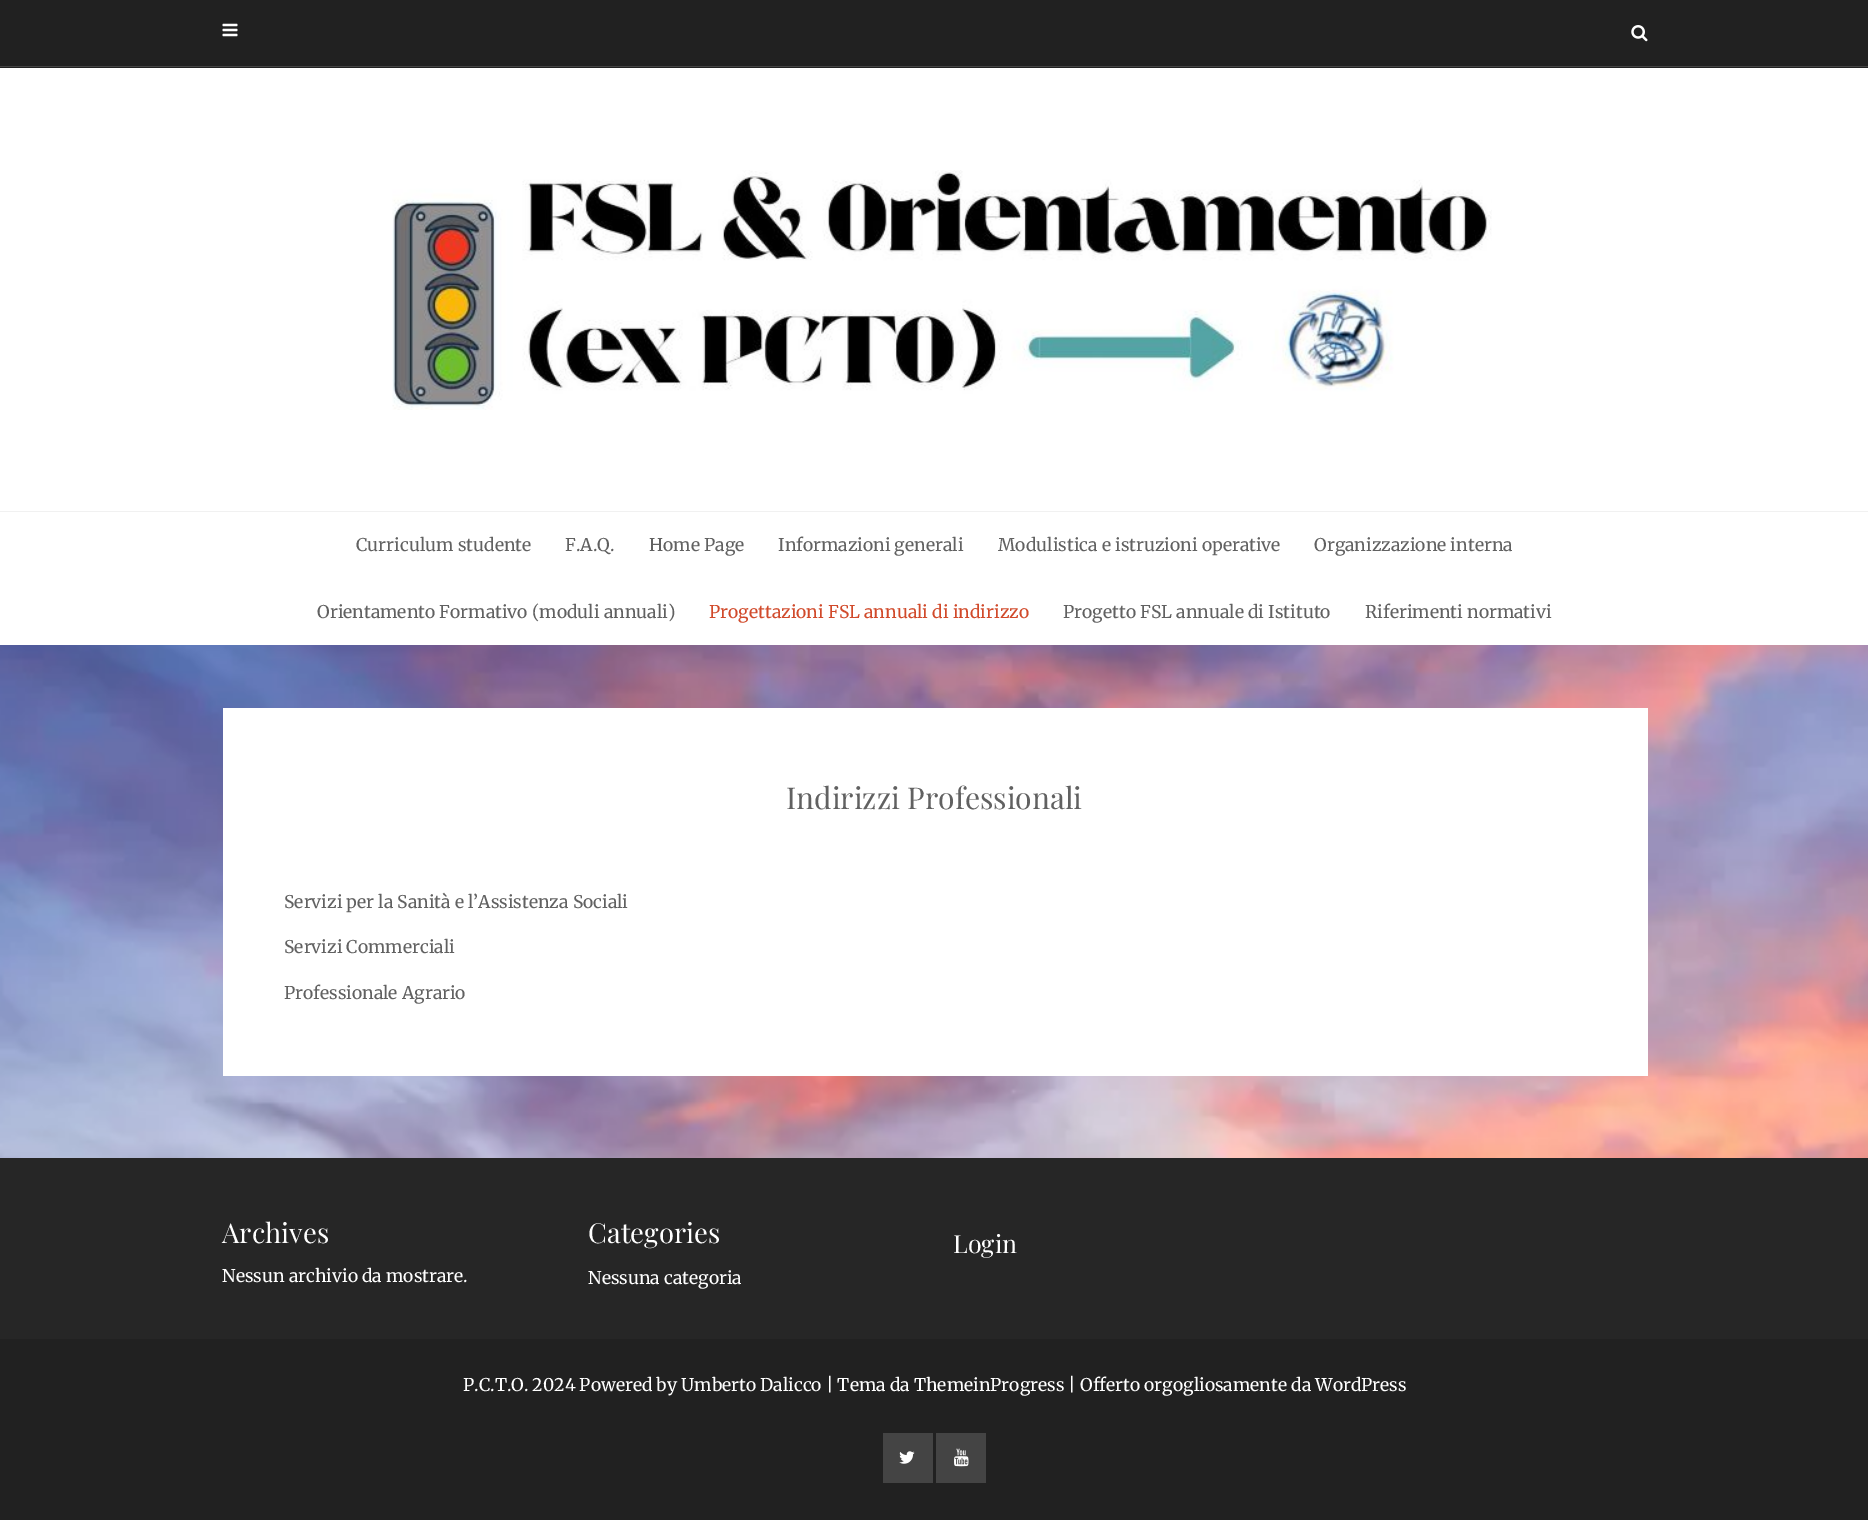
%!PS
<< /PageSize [1868 1520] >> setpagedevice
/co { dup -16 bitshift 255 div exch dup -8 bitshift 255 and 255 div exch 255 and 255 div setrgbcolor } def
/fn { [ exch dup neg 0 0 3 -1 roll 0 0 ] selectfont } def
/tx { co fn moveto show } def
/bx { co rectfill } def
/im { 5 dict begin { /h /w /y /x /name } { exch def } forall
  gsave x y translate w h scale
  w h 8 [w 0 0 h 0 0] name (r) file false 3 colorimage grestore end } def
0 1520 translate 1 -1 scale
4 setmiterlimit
0 0 1868 1520 16#FFFFFF bx
(media/1.raw) 0 645 1868 513 im
0 0 1868 68 16#212121 bx
0 66 1868 1 16#444444 bx
(media/2.raw) 222 23 16 14 im
(media/3.raw) 1631 25 17 17 im
(media/4.raw) 392 170 1100 240 im
0 511 1868 1 16#F1F1F1 bx
223 708 1425 368 16#FFFFFF bx
0 1339 1868 181 16#212121 bx
0 1158 1868 181 16#262626 bx
883 1433 50 50 16#444444 bx
(media/5.raw) 899 1451 16 13 im
936 1433 50 50 16#444444 bx
(media/6.raw) 954 1448 15 19 im
(Curriculum studente) 356 551 /Merriweather-Regular 17.5 16#616161 tx
(F.A.Q.) 565 551 /Merriweather-Regular 17.5 16#616161 tx
(Home Page) 649 551 /Merriweather-Regular 17.5 16#616161 tx
(Informazioni generali) 778 551 /Merriweather-Regular 17.5 16#616161 tx
(Modulistica e istruzioni operative) 998 551 /Merriweather-Regular 17.5 16#616161 tx
(Organizzazione interna) 1314 551 /Merriweather-Regular 17.5 16#616161 tx
(Orientamento Formativo \(moduli annuali\)) 317 618 /Merriweather-Regular 17.5 16#616161 tx
(Progettazioni FSL annuali di indirizzo) 709 618 /Merriweather-Regular 17.5 16#D14A2B tx
(Progetto FSL annuale di Istituto) 1063 618 /Merriweather-Regular 17.5 16#616161 tx
(Riferimenti normativi) 1365 618 /Merriweather-Regular 17.5 16#616161 tx
(Indirizzi Professionali) 786 809 /PlayfairDisplay-Regular 30 16#616161 tx
(Servizi per la Sanità e l’Assistenza Sociali) 284 908 /Merriweather-Regular 17.5 16#616161 tx
(Servizi Commerciali) 284 953 /Merriweather-Regular 17.5 16#616161 tx
(Professionale Agrario) 284 999 /Merriweather-Regular 17.5 16#616161 tx
(Archives) 222 1243 /PlayfairDisplay-Regular 27.5 16#FFFFFF tx
(Nessun archivio da mostrare.) 222 1282 /Merriweather-Regular 17.5 16#FFFFFF tx
(Categories) 588 1243 /PlayfairDisplay-Regular 27.5 16#FFFFFF tx
(Nessuna categoria) 588 1284 /Merriweather-Regular 17.5 16#FFFFFF tx
(Login) 953 1253 /PlayfairDisplay-Regular 25 16#FFFFFF tx
(P.C.T.O. 2024 Powered by Umberto Dalicco | Tema da ThemeinProgress | Offerto orgogliosamente da WordPress) 463 1391 /Merriweather-Regular 17.5 16#FFFFFF tx
showpage
